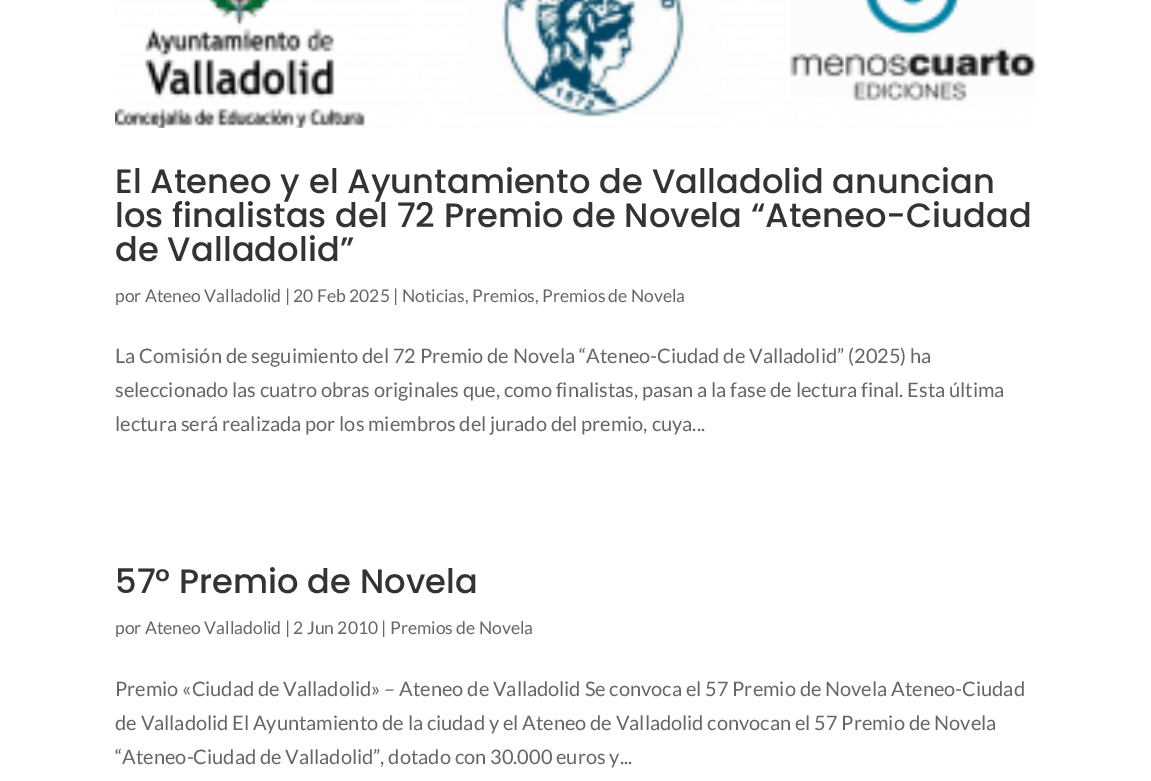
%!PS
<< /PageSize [1151 781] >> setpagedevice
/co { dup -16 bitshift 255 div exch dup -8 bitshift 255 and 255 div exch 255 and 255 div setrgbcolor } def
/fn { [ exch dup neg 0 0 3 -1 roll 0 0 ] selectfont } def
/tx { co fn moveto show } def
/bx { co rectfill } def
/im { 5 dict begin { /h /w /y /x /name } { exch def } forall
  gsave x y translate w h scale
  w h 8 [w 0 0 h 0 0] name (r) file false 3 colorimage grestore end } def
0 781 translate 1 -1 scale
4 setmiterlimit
0 0 1151 781 16#FFFFFF bx
(media/1.raw) 115 0 922 128 im
(El Ateneo y el Ayuntamiento de Valladolid anuncian) 115 193 /Poppins-Medium 33.75 16#333333 tx
(los finalistas del 72 Premio de Novela “Ateneo-Ciudad) 115 227 /Poppins-Medium 33.75 16#333333 tx
(de Valladolid”) 115 261 /Poppins-Medium 33.75 16#333333 tx
(por Ateneo Valladolid | 20 Feb 2025 | Noticias, Premios, Premios de Novela) 115 302 /Lato-Regular 17.5 16#666666 tx
(La Comisión de seguimiento del 72 Premio de Novela “Ateneo-Ciudad de Valladolid” \(2025\) ha) 115 363 /Lato-Regular 20 16#666666 tx
(seleccionado las cuatro obras originales que, como finalistas, pasan a la fase de lectura final. Esta última) 115 397 /Lato-Regular 20 16#666666 tx
(lectura será realizada por los miembros del jurado del premio, cuya...) 115 431 /Lato-Regular 20 16#666666 tx
(57º Premio de Novela) 115 593 /Poppins-Medium 33.75 16#333333 tx
(por Ateneo Valladolid | 2 Jun 2010 | Premios de Novela) 115 634 /Lato-Regular 17.5 16#666666 tx
(Premio «Ciudad de Valladolid» – Ateneo de Valladolid Se convoca el 57 Premio de Novela Ateneo-Ciudad) 115 696 /Lato-Regular 20 16#666666 tx
(de Valladolid El Ayuntamiento de la ciudad y el Ateneo de Valladolid convocan el 57 Premio de Novela) 115 730 /Lato-Regular 20 16#666666 tx
(“Ateneo-Ciudad de Valladolid”, dotado con 30.000 euros y...) 115 764 /Lato-Regular 20 16#666666 tx
showpage
